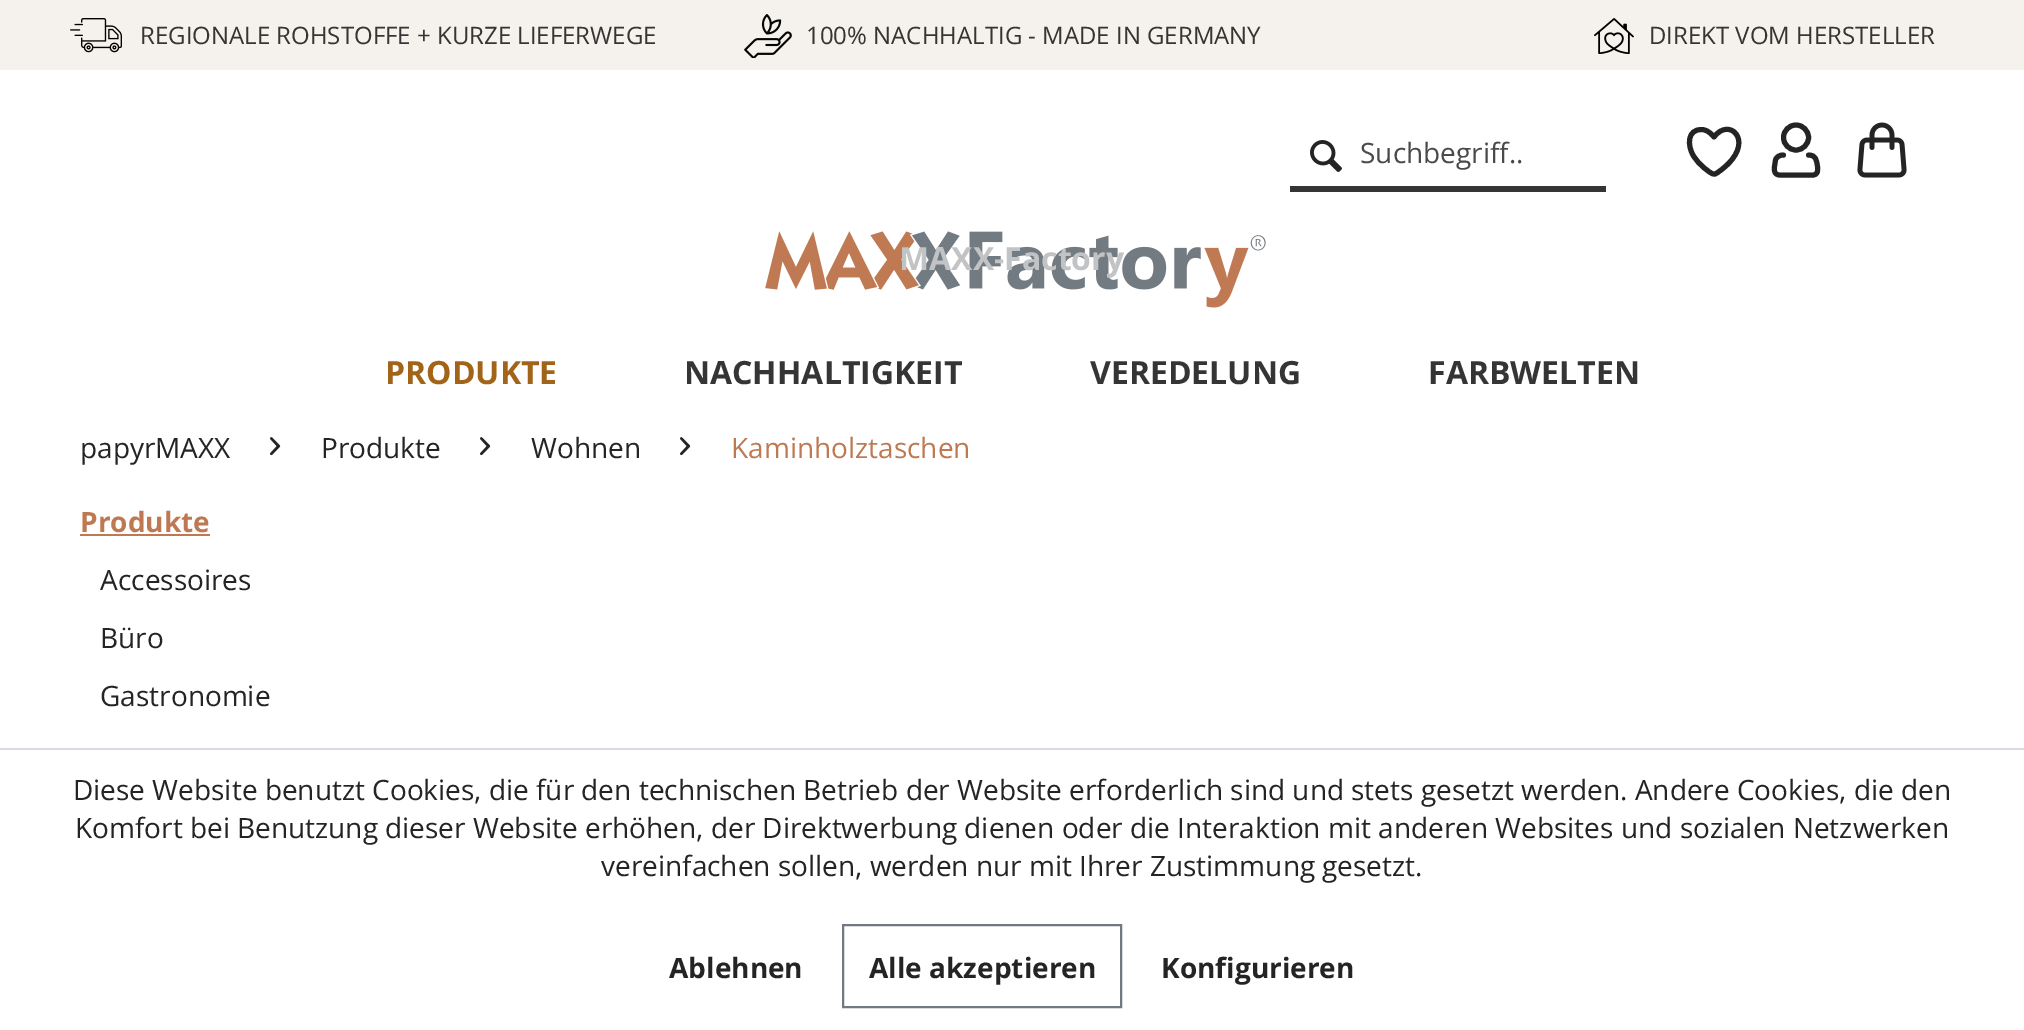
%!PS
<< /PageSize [2024 1030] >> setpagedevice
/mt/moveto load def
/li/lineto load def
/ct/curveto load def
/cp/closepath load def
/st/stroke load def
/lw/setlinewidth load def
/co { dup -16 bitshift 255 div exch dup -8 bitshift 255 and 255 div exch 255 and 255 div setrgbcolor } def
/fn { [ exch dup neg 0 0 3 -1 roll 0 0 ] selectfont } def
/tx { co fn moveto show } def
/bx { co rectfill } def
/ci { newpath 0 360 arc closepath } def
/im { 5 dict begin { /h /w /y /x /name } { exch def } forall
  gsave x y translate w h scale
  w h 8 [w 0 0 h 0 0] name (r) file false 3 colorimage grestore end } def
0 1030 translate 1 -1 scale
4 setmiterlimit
0 0 2024 1030 16#FFFFFF bx
0 0 2024 70 16#F5F1ED bx
(media/1.raw) 70 18 52 35 im
(media/2.raw) 744 14 48 44 im
(media/3.raw) 1594 18 40 36 im
(media/4.raw) 1310 140 32 32 im
1290 186 316 6 16#343534 bx
16#242424 co
5 lw
1 setlinecap
1 setlinejoin
1701.5 129.5 mt 1687 129.5 1687.5 145.5 1693 155 ct 1696 160.5 1700.5 165 1705.5 169 ct 1706.5 169.5 1712 175 1715 174 ct 1718.5 172.5 1725 167 1728 164 ct 1753 139.5 1729 117 1714 137 ct 1714 137 1708.5 129.5 1701.5 129.5 ct cp st
0 setlinecap
0 setlinejoin
1796 137.5 12.5 ci st
1 setlinecap
1 setlinejoin
1808.5 155 mt 1816 155 1816.5 160 1817.5 166.5 ct 1818 170 1818 175 1813 175 ct 1790.5 175 li 1780.5 175 1773 177.5 1774.5 166.5 ct 1775.5 160 li 1776.5 156.5 1780 155 1783.5 155 ct st
(media/5.raw) 1857 122 50 56 im
(media/6.raw) 765 231 501 77 im
(media/7.raw) 270 437 11 19 im
(media/7.raw) 480 437 11 19 im
(media/7.raw) 680 437 11 19 im
80 534 130 2 16#BE7952 bx
0 748 2024 2 16#DADAE5 bx
16#717A83 co
2 lw
0 setlinecap
0 setlinejoin
843 925 278 82 rectstroke
(REGIONALE ROHSTOFFE + KURZE LIEFERWEGE) 140 44 /OpenSans-Regular 24 16#343534 tx
(100% NACHHALTIG - MADE IN GERMANY) 806 44 /OpenSans-Regular 24 16#343534 tx
(DIREKT VOM HERSTELLER) 1649 44 /OpenSans-Regular 24 16#343534 tx
(Suchbegriff..) 1360 163 /OpenSans-Regular 28 16#4A4A4A tx
(MAXX-Factory) 899 270 /OpenSans-Bold 32 16#C2C3C5 tx
(PRODUKTE) 385 384 /OpenSans-Bold 32 16#A16418 tx
(NACHHALTIGKEIT) 684 384 /OpenSans-Bold 32 16#343534 tx
(VEREDELUNG) 1090 384 /OpenSans-Bold 32 16#343534 tx
(FARBWELTEN) 1428 384 /OpenSans-Bold 32 16#343534 tx
(papyrMAXX) 80 458 /OpenSans-Regular 28 16#242424 tx
(Produkte) 321 458 /OpenSans-Regular 28 16#242424 tx
(Wohnen) 531 458 /OpenSans-Regular 28 16#242424 tx
(Kaminholztaschen) 731 458 /OpenSans-Regular 28 16#BE7952 tx
(Produkte) 80 532 /OpenSans-Bold 28 16#BE7952 tx
(Accessoires) 100 590 /OpenSans-Regular 28 16#242424 tx
(Büro) 100 648 /OpenSans-Regular 28 16#242424 tx
(Gastronomie) 100 706 /OpenSans-Regular 28 16#242424 tx
(Diese Website benutzt Cookies, die für den technischen Betrieb der Website erforderlich sind und stets gesetzt werden. Andere Cookies, die den) 73 800 /OpenSans-Regular 28 16#242424 tx
(Komfort bei Benutzung dieser Website erhöhen, der Direktwerbung dienen oder die Interaktion mit anderen Websites und sozialen Netzwerken) 75 838 /OpenSans-Regular 28 16#242424 tx
(vereinfachen sollen, werden nur mit Ihrer Zustimmung gesetzt.) 601 876 /OpenSans-Regular 28 16#242424 tx
(Ablehnen) 669 978 /OpenSans-Bold 28 16#242424 tx
(Alle akzeptieren) 869 978 /OpenSans-Bold 28 16#242424 tx
(Konfigurieren) 1161 978 /OpenSans-Bold 28 16#242424 tx
showpage
